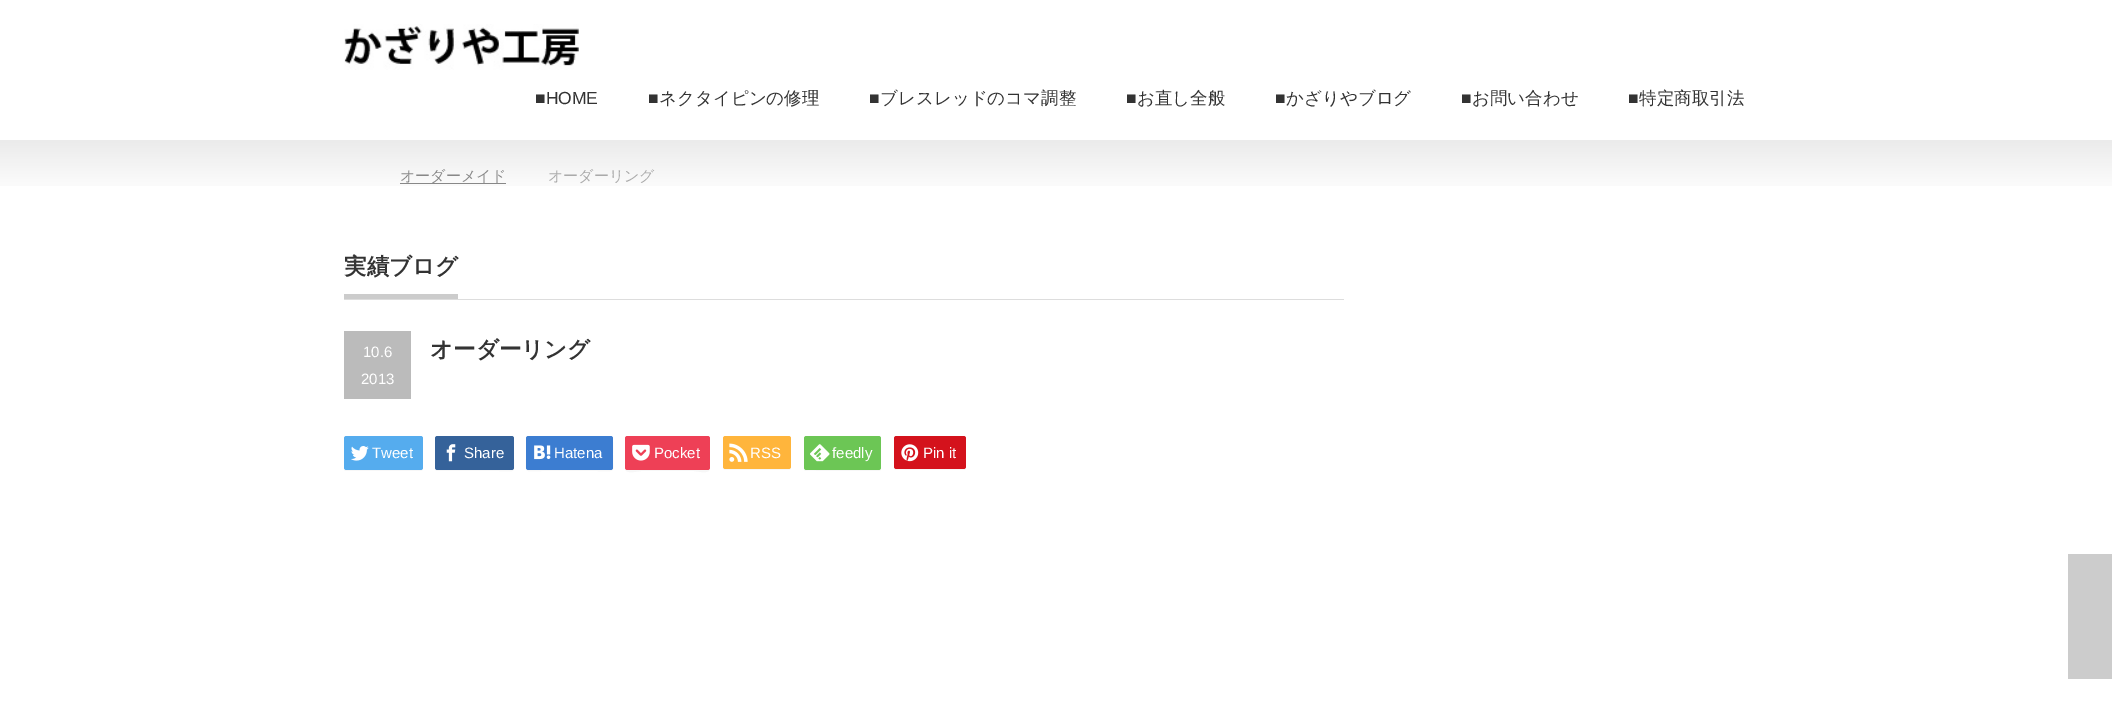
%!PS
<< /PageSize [2112 709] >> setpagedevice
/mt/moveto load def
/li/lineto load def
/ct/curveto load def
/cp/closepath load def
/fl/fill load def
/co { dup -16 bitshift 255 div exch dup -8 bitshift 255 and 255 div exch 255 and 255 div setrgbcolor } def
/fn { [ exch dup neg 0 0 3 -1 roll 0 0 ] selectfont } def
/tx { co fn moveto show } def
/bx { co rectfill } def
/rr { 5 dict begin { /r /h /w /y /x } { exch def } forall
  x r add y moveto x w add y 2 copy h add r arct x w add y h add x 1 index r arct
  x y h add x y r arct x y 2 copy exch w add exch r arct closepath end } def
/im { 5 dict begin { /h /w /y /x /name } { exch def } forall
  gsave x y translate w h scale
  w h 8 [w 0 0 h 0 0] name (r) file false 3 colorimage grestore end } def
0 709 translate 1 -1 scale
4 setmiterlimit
0 0 2112 709 16#FFFFFF bx
(media/1.raw) 344 24 235 46 im
(media/2.raw) 0 140 2112 46 im
400 183 106 1 16#888888 bx
344 299 1000 1 16#DDDDDD bx
344 294 114 5 16#CCCCCC bx
344 331 67 68 16#BBBBBB bx
16#F7F7F7 co
344 469 mt 344 470 345 471 346 471 ct 420 471 li 422 471 423 470 423 468 ct 423 440 li 422 439 li 422 443 423 467 422 469 ct 420 470 li 345 470 li cp fl
16#55ACEE co
344 436 79 34 2.5 rr fl
(media/3.raw) 351 446 18 15 im
16#F7F7F7 co
435 468 mt 435 469 435 470 437 471 ct 499 471 li 516 471 514 474 514 459 ct 514 439 li 514 468 li 514 469 513 470 511 470 ct 438 470 li 436 470 435 469 435 468 ct cp fl
16#35629A co
435 436 79 34 2.5 rr fl
(media/4.raw) 446 444 10 18 im
16#F7F7F7 co
526 439 mt 526 459 li 526 474 524 471 542 471 ct 597 471 li 617 471 613 474 613 454 ct 613 452 614 441 612 439 ct 612 468 li 612 469 611 470 610 470 ct 529 470 li 527 470 526 469 526 468 ct cp fl
16#3C7DD1 co
526 436 87 34 2.5 rr fl
(media/5.raw) 534 445 17 15 im
16#F7F7F7 co
625 468 mt 625 475 638 471 641 471 ct 694 471 li 697 471 710 475 710 468 ct 710 469 709 470 708 470 ct 628 470 li 626 470 625 469 625 468 ct cp fl
16#EE4056 co
625 436 85 34 2.5 rr fl
(media/6.raw) 632 444 18 17 im
16#F7F7F7 co
723 468 mt 723 469 724 469 725 470 ct 788 470 li 790 470 791 469 791 467 ct 789 469 li 725 469 li cp fl
16#FFB53C co
723 436 68 33 2.5 rr fl
(media/7.raw) 729 443 19 19 im
16#F7F7F7 co
804 469 mt 804 470 805 471 806 471 ct 878 471 li 880 471 881 470 881 469 ct 880 470 li 818 470 li 818 470 806 472 804 469 ct cp fl
16#6CC655 co
804 436 77 34 2.5 rr fl
(media/8.raw) 810 444 20 18 im
16#F7F7F7 co
894 467 mt 894 469 895 470 896 470 ct 964 470 li 965 470 966 469 966 467 ct 964 469 li 908 469 li 906 469 896 471 894 467 ct cp fl
16#D4121C co
894 436 72 33 2.5 rr fl
(media/9.raw) 901 444 18 18 im
2068 554 44 125 16#CCCCCC bx
(■HOME) 535 104 /LiberationSans-Regular 17.5 16#333333 tx
(■) 648 104 /LiberationSans-Regular 17.5 16#333333 tx
(ネクタイピンの修理) 659 104 /WenQuanYiZenHei-Medium 17.5 16#333333 tx
(■) 869 104 /LiberationSans-Regular 17.5 16#333333 tx
(ブレスレッドのコマ調整) 880 104 /WenQuanYiZenHei-Medium 17.5 16#333333 tx
(■) 1126 104 /LiberationSans-Regular 17.5 16#333333 tx
(お直し全般) 1137 104 /WenQuanYiZenHei-Medium 17.5 16#333333 tx
(■) 1275 104 /LiberationSans-Regular 17.5 16#333333 tx
(かざりやブログ) 1286 104 /WenQuanYiZenHei-Medium 17.5 16#333333 tx
(■) 1461 104 /LiberationSans-Regular 17.5 16#333333 tx
(お問い合わせ) 1472 104 /WenQuanYiZenHei-Medium 17.5 16#333333 tx
(■) 1628 104 /LiberationSans-Regular 17.5 16#333333 tx
(特定商取引法) 1639 104 /WenQuanYiZenHei-Medium 17.5 16#333333 tx
(オーダーメイド) 400 181 /WenQuanYiZenHei-Medium 15 16#888888 tx
(オーダーリング) 548 181 /WenQuanYiZenHei-Medium 15 16#AAAAAA tx
(実績ブログ) 344 274 /WenQuanYiZenHei-Bold 22.5 16#333333 tx
(10.6) 363 357 /LiberationSans-Regular 15 16#FFFFFF tx
(2013) 361 384 /LiberationSans-Regular 15 16#FFFFFF tx
(オーダーリング) 430 357 /WenQuanYiZenHei-Bold 22.5 16#333333 tx
(Tweet) 372 458 /LiberationSans-Regular 15 16#FFFFFF tx
(Share) 464 458 /LiberationSans-Regular 15 16#FFFFFF tx
(Hatena) 554 458 /LiberationSans-Regular 15 16#FFFFFF tx
(Pocket) 654 458 /LiberationSans-Regular 15 16#FFFFFF tx
(RSS) 750 458 /LiberationSans-Regular 15 16#FFFFFF tx
(feedly) 832 458 /LiberationSans-Regular 15 16#FFFFFF tx
(Pin it) 923 458 /LiberationSans-Regular 15 16#FFFFFF tx
showpage
